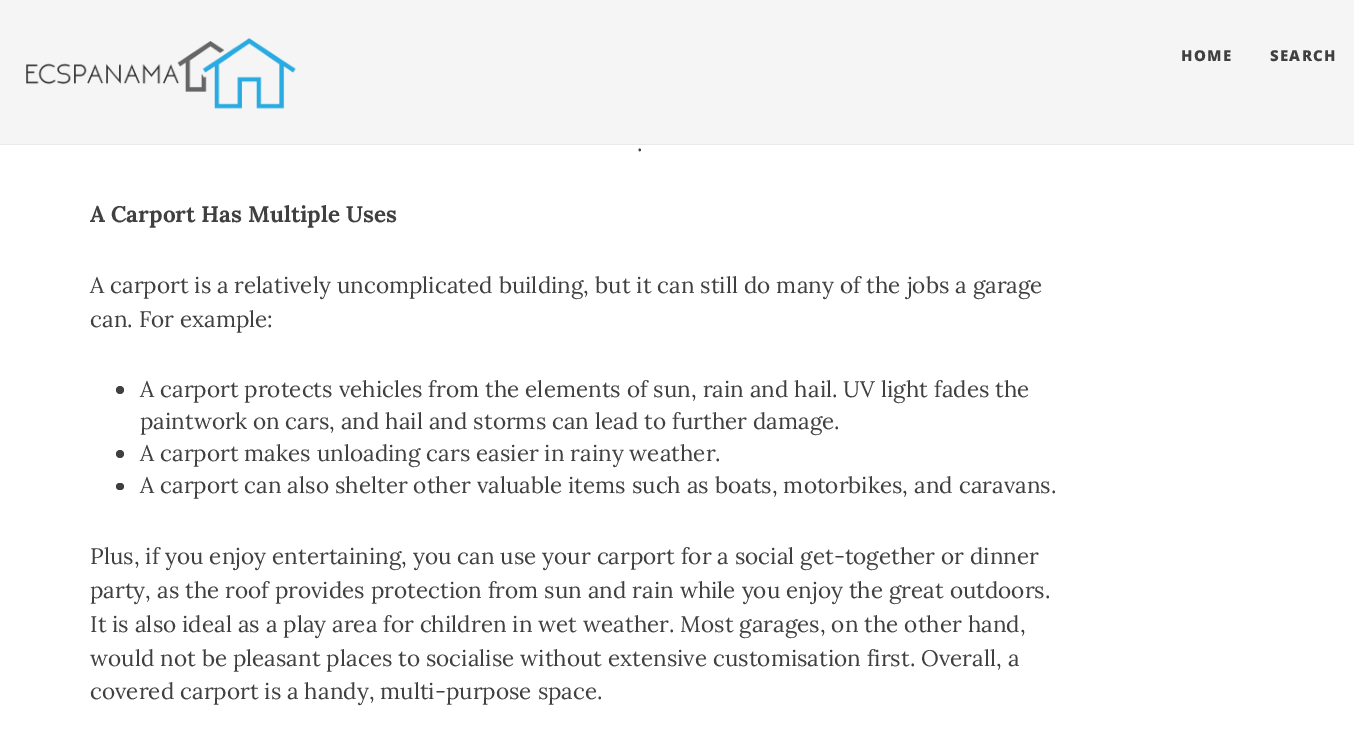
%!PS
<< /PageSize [1354 748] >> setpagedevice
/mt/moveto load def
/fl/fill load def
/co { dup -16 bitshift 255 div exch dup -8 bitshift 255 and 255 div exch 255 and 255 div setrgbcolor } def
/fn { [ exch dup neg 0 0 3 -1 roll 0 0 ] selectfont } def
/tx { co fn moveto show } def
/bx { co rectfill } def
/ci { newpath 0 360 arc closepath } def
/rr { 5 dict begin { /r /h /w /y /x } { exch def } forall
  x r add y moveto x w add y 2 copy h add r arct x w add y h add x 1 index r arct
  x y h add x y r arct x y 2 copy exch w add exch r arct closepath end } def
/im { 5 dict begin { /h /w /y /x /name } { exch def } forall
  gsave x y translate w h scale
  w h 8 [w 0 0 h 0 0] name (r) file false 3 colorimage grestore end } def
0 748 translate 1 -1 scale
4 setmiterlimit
0 0 1354 748 16#FFFFFF bx
0 0 1354 144 16#F5F5F5 bx
0 144 1354 1 16#EAEAEA bx
(media/1.raw) 26 38 270 71 im
16#404040 co
120 390 4 ci fl
120 454 4 ci fl
116 483 8 7 3.5 rr fl
/OpenSans-ExtraBold 15 fn
1181 61 mt 1.25 0 (HOME) ashow
1270 61 mt 1.25 0 (SEARCH) ashow
(.) 637 151 /Lora-Regular 22.5 16#404040 tx
(A Carport Has Multiple Uses) 90 222 /Lora-Bold 22.5 16#404040 tx
(A carport is a relatively uncomplicated building, but it can still do many of the jobs a garage) 90 293 /Lora-Regular 22.5 16#404040 tx
(can. For example:) 90 327 /Lora-Regular 22.5 16#404040 tx
(A carport protects vehicles from the elements of sun, rain and hail. UV light fades the) 140 397 /Lora-Regular 22.5 16#404040 tx
(paintwork on cars, and hail and storms can lead to further damage.) 140 429 /Lora-Regular 22.5 16#404040 tx
(A carport makes unloading cars easier in rainy weather.) 140 461 /Lora-Regular 22.5 16#404040 tx
(A carport can also shelter other valuable items such as boats, motorbikes, and caravans.) 140 493 /Lora-Regular 22.5 16#404040 tx
(Plus, if you enjoy entertaining, you can use your carport for a social get-together or dinner) 90 564 /Lora-Regular 22.5 16#404040 tx
(party, as the roof provides protection from sun and rain while you enjoy the great outdoors.) 90 598 /Lora-Regular 22.5 16#404040 tx
(It is also ideal as a play area for children in wet weather. Most garages, on the other hand,) 90 632 /Lora-Regular 22.5 16#404040 tx
(would not be pleasant places to socialise without extensive customisation first. Overall, a) 90 666 /Lora-Regular 22.5 16#404040 tx
(covered carport is a handy, multi-purpose space.) 90 699 /Lora-Regular 22.5 16#404040 tx
showpage
